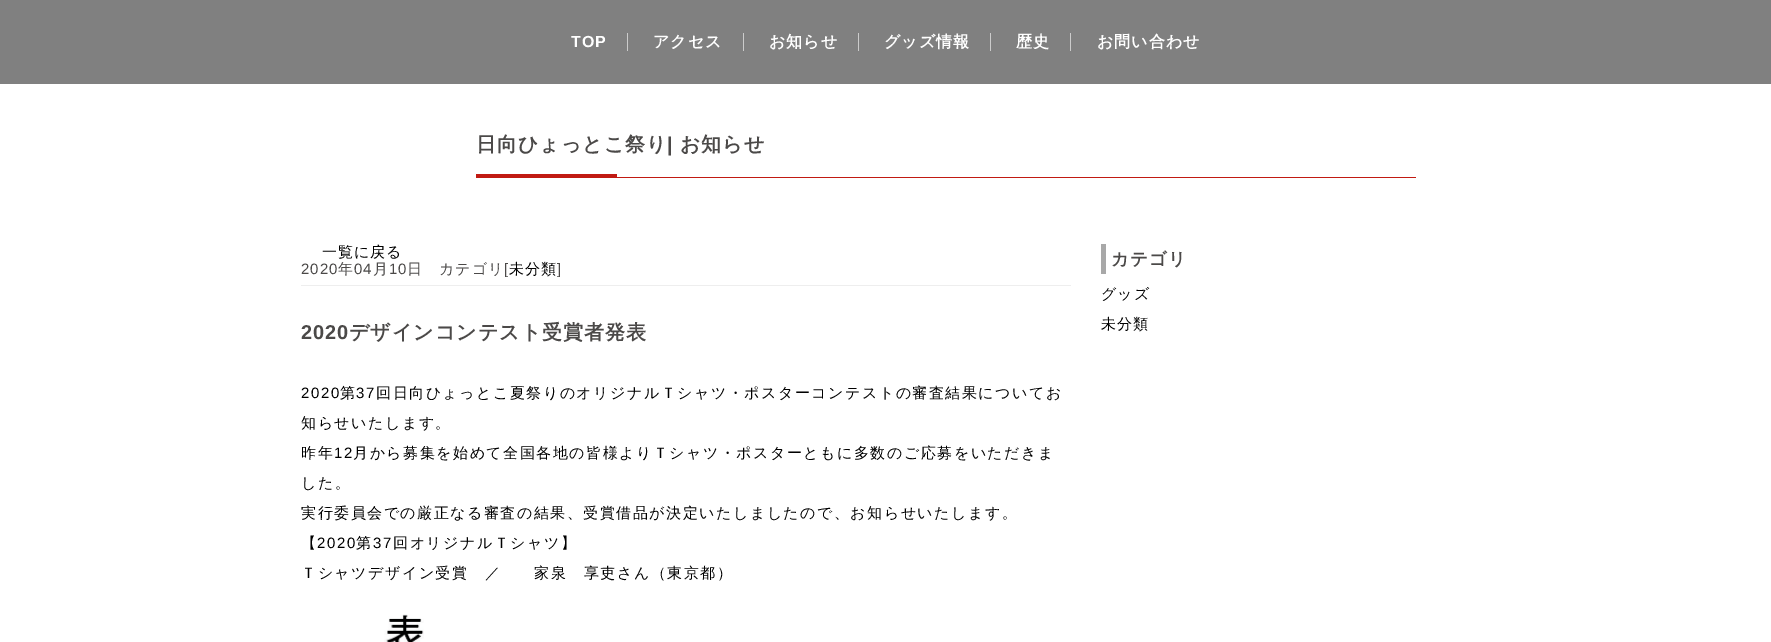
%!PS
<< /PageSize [1771 642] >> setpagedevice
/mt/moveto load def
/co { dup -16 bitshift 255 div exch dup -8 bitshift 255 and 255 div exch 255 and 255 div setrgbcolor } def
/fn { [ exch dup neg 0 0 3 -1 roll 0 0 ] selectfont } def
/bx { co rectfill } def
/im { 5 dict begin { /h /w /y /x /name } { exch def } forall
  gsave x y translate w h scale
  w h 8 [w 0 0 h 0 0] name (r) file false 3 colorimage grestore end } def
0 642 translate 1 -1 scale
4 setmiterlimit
0 0 1771 642 16#FFFFFF bx
0 0 1771 84 16#808080 bx
627 33 1 18 16#CCCCCC bx
743 33 1 18 16#CCCCCC bx
858 33 1 18 16#CCCCCC bx
990 33 1 18 16#CCCCCC bx
1070 33 1 18 16#CCCCCC bx
476 174 141 4 16#C11A12 bx
617 177 799 1 16#C11A12 bx
301 285 770 1 16#EEEEEE bx
(media/1.raw) 384 614 40 28 im
1101 244 5 30 16#A8A8A8 bx
/LiberationSans-Bold 16 fn
16#FFFFFF co
571 47 mt 1 0 (TOP) ashow
/WenQuanYiZenHei-Bold 16 fn
653 47 mt 1 0 (アクセス) ashow
769 47 mt 1 0 (お知らせ) ashow
884 47 mt 1 0 (グッズ情報) ashow
1016 47 mt 1 0 (歴史) ashow
1097 47 mt 1 0 (お問い合わせ) ashow
/WenQuanYiZenHei-Bold 20 fn
16#4B4948 co
476 151 mt 1 0 (日向ひょっとこ祭り) ashow
/LiberationSans-Bold 20 fn
667 151 mt 1 0 (|) ashow
/WenQuanYiZenHei-Bold 20 fn
680 151 mt 1 0 (お知らせ) ashow
/WenQuanYiZenHei-Medium 15 fn
16#000000 co
322 257 mt 1 0 (一覧に戻る) ashow
/LiberationSans-Regular 15 fn
16#4B4948 co
301 274 mt 1 0 (2020) ashow
/WenQuanYiZenHei-Medium 15 fn
338 274 mt 1 0 (年) ashow
/LiberationSans-Regular 15 fn
354 274 mt 1 0 (04) ashow
/WenQuanYiZenHei-Medium 15 fn
373 274 mt 1 0 (月) ashow
/LiberationSans-Regular 15 fn
389 274 mt 1 0 (10) ashow
/WenQuanYiZenHei-Medium 15 fn
407 274 mt 1 0 (日) ashow
439 274 mt 1 0 (カテゴリ) ashow
/LiberationSans-Regular 15 fn
504 274 mt 1 0 ([) ashow
/WenQuanYiZenHei-Medium 15 fn
16#000000 co
509 274 mt 1 0 (未分類) ashow
/LiberationSans-Regular 15 fn
16#4B4948 co
557 274 mt 1 0 (]) ashow
/LiberationSans-Bold 20 fn
301 339 mt 1 0 (2020) ashow
/WenQuanYiZenHei-Bold 20 fn
349 339 mt 1 0 (デザインコンテスト受賞者発表) ashow
/LiberationSans-Regular 15 fn
16#000000 co
301 398 mt 1.5 0 (2020) ashow
/WenQuanYiZenHei-Medium 15 fn
340 398 mt 1.5 0 (第) ashow
/LiberationSans-Regular 15 fn
356 398 mt 1.5 0 (37) ashow
/WenQuanYiZenHei-Medium 15 fn
376 398 mt 1.5 0 (回日向ひょっとこ夏祭りのオリジナルＴシャツ・ポスターコンテストの審査結果についてお) ashow
301 428 mt 1.5 0 (知らせいたします。) ashow
301 458 mt 1.5 0 (昨年) ashow
/LiberationSans-Regular 15 fn
334 458 mt 1.5 0 (12) ashow
/WenQuanYiZenHei-Medium 15 fn
353 458 mt 1.5 0 (月から募集を始めて全国各地の皆様よりＴシャツ・ポスターともに多数のご応募をいただきま) ashow
301 488 mt 1.5 0 (した。) ashow
301 518 mt 1.5 0 (実行委員会での厳正なる審査の結果、受賞借品が決定いたしましたので、お知らせいたします。) ashow
301 548 mt 1.5 0 (【) ashow
/LiberationSans-Regular 15 fn
317 548 mt 1.5 0 (2020) ashow
/WenQuanYiZenHei-Medium 15 fn
356 548 mt 1.5 0 (第) ashow
/LiberationSans-Regular 15 fn
373 548 mt 1.5 0 (37) ashow
/WenQuanYiZenHei-Medium 15 fn
393 548 mt 1.5 0 (回オリジナルＴシャツ】) ashow
301 578 mt 1.5 0 (Ｔシャツデザイン受賞　／　　家泉　享吏さん（東京都）) ashow
/WenQuanYiZenHei-Bold 17.5 fn
16#4B4948 co
1111 265 mt 1 0 (カテゴリ) ashow
/WenQuanYiZenHei-Medium 15 fn
16#000000 co
1101 299 mt 1 0 (グッズ) ashow
1101 329 mt 1 0 (未分類) ashow
showpage
